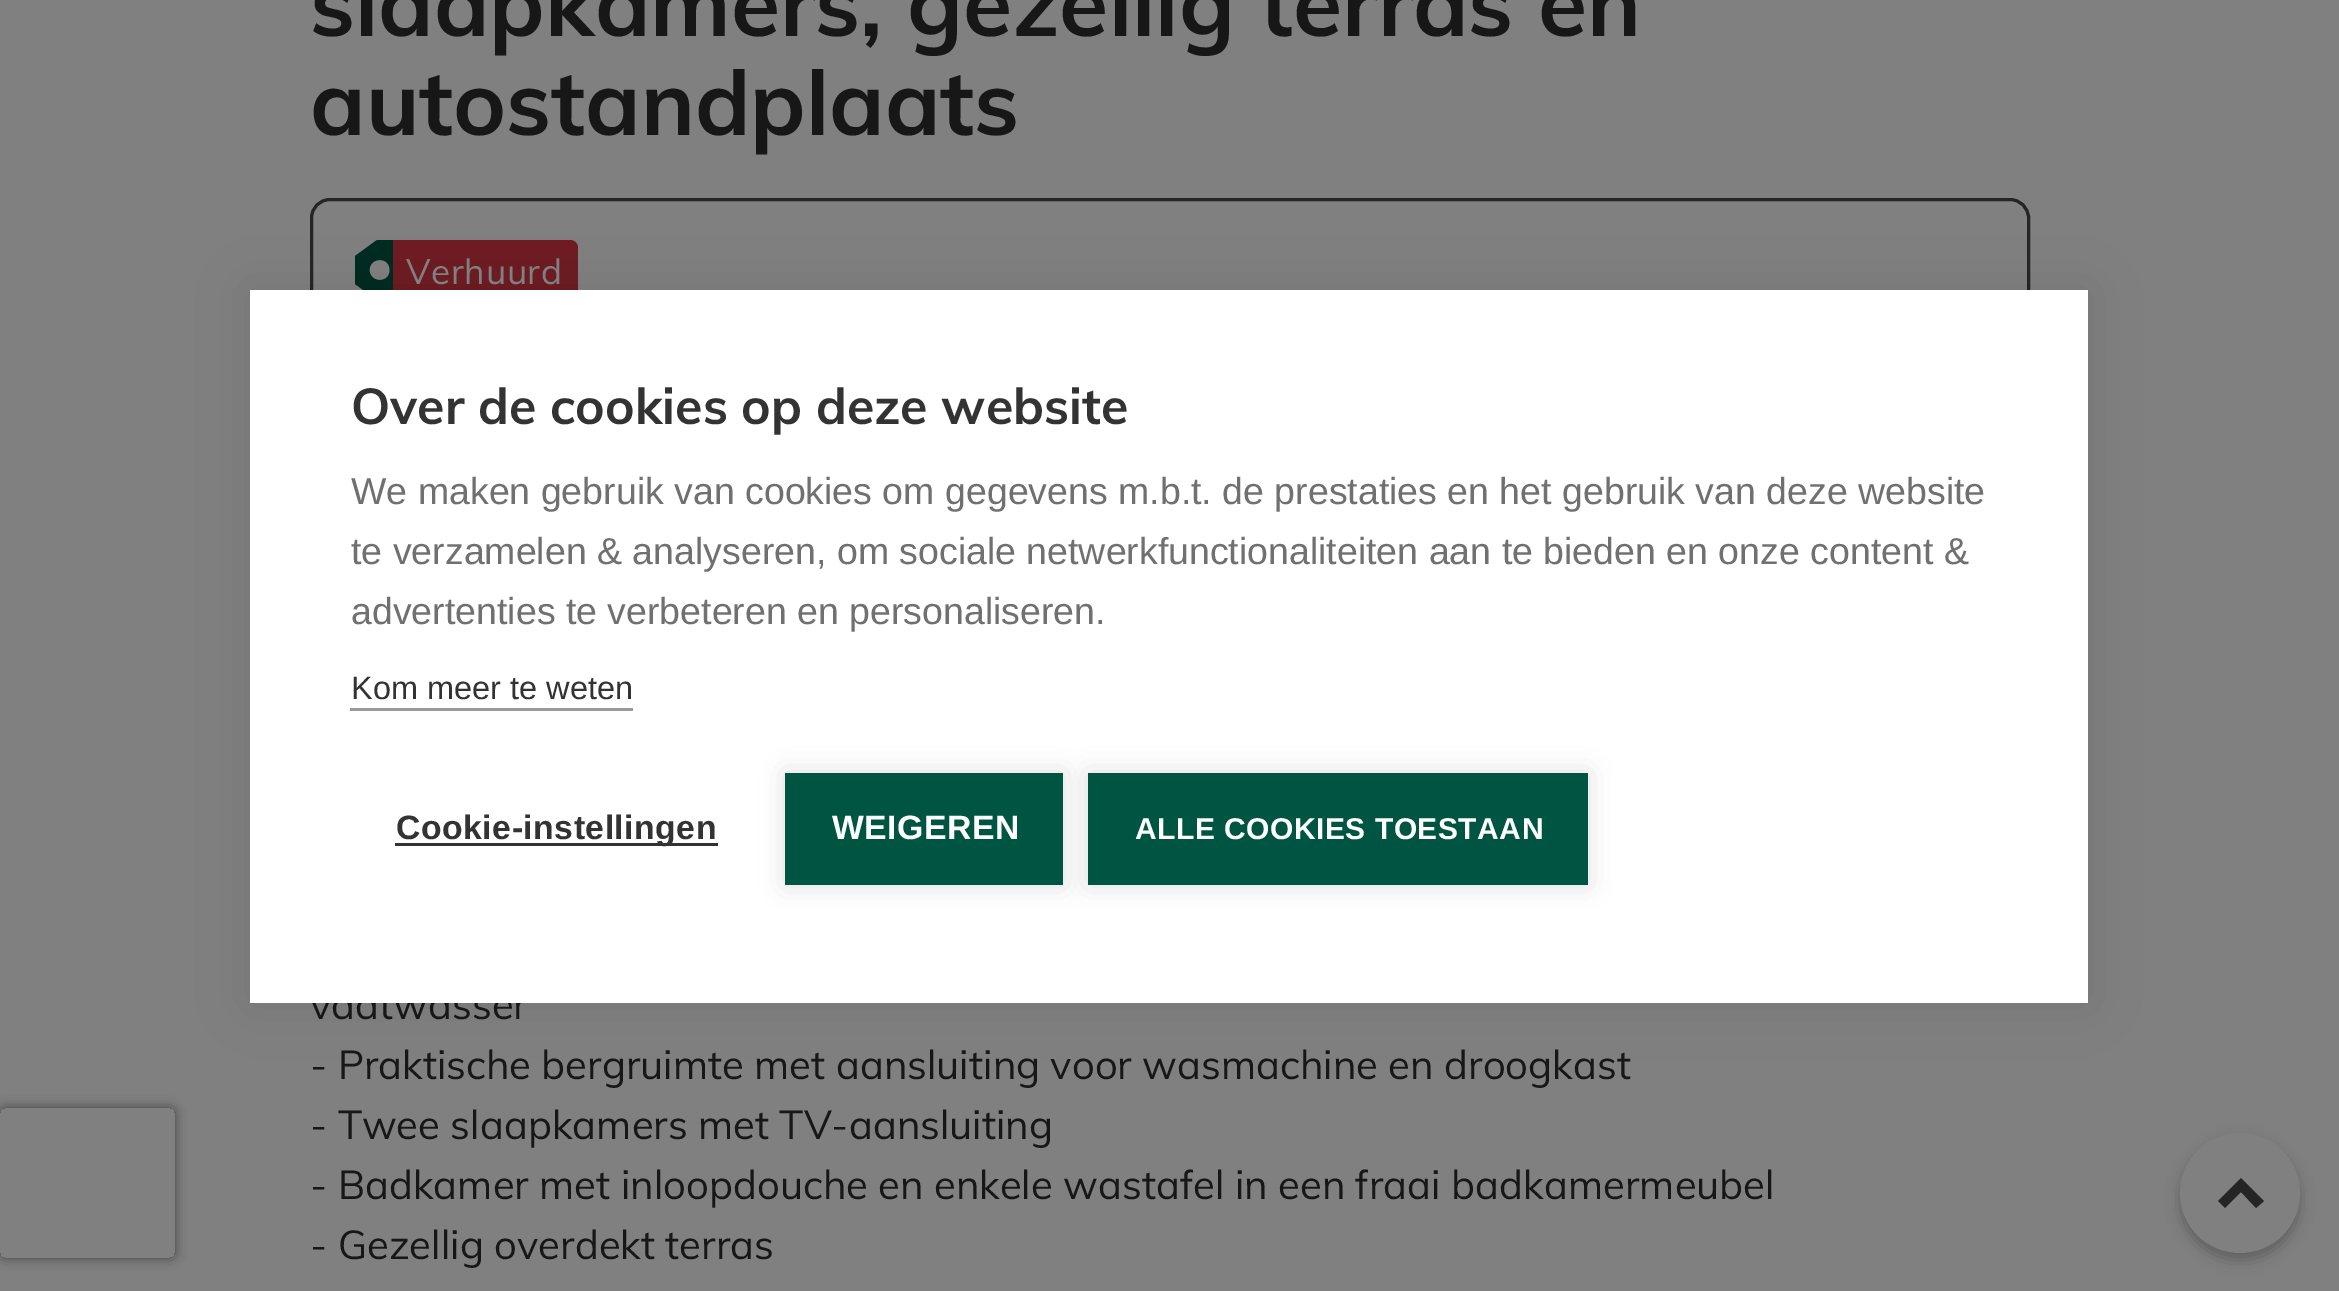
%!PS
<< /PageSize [2339 1291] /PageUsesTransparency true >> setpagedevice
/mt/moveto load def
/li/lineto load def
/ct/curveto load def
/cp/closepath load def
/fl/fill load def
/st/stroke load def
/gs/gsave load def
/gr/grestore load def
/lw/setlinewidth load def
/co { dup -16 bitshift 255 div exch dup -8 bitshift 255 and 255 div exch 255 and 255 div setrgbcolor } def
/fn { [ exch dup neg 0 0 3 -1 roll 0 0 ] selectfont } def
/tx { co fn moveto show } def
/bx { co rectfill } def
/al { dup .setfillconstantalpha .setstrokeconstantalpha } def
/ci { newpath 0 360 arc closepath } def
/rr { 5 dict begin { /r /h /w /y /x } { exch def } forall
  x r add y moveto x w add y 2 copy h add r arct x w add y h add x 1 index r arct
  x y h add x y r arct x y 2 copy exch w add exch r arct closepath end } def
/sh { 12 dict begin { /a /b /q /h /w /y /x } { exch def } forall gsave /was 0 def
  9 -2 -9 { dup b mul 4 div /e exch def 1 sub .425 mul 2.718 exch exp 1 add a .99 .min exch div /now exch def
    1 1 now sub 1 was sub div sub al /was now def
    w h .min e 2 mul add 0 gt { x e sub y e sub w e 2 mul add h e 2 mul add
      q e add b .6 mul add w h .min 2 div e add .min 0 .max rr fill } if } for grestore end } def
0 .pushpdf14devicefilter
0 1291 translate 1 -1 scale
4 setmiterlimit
0 0 2339 1291 16#808080 bx
16#252525 co
3 lw
311.5 199.5 1717 142 18.5 rr st
gs
353 240 40 60 rectclip
16#002B21 co
355 284 mt 377 300 li 570 300 li 574 300 578 296 578 292 ct 578 248 li 578 244 574 240 570 240 ct 377 240 li 355 256 li cp 380 260 mt 366 260 366 280 380 280 ct 393 280 393 260 380 260 ct cp eofill
gr
16#6E1B23 co
393 240 mt 570 240 li 574.5 240 578 243.5 578 248 ct 578 292 li 578 296.5 574.5 300 570 300 ct 393 300 li cp fl
16#000000 co
250 290 1838 713 0 25 .1 sh
gs
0 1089 mt 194 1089 li 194 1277 li 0 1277 li cp 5 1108 mt 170 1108 li 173 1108 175 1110 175 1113 ct 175 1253 li 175 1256 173 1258 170 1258 ct 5 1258 li 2 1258 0 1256 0 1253 ct 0 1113 li 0 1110 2 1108 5 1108 ct cp eoclip newpath
16#404040 co
0 1108 175 150 5 6 1 sh
gr
2180 1140 120 120 60 7.5 .25 sh
16#808080 co
2240 1193 60 ci fl
16#252525 co
2256 1208 mt 2264 1201 li 2241 1178 li 2218 1201 li 2225 1208 li 2241 1192 li cp fl
(slaapkamers, gezellig terras en) 310 36 /Muli-Bold 89.75 16#171717 tx
(autostandplaats) 310 135 /Muli-Bold 89.75 16#171717 tx
/Muli-Regular 35 fn
16#808080 co
406 284 mt .75 0 (Verhuurd) ashow
(vaatwasser) 310 1019 /Muli-Regular 40 16#171717 tx
(- Praktische bergruimte met aansluiting voor wasmachine en droogkast) 310 1079 /Muli-Regular 40 16#171717 tx
(- Twee slaapkamers met TV-aansluiting) 310 1139 /Muli-Regular 40 16#171717 tx
(- Badkamer met inloopdouche en enkele wastafel in een fraai badkamermeubel) 310 1199 /Muli-Regular 40 16#171717 tx
(- Gezellig overdekt terras) 310 1259 /Muli-Regular 40 16#171717 tx
250 290 1838 713 16#FFFFFF bx
(Over de cookies op deze website) 351 424 /Muli-Bold 50 16#333333 tx
(We maken gebruik van cookies om gegevens m.b.t. de prestaties en het gebruik van deze website) 351 504 /LiberationSans-Regular 37.5 16#707070 tx
(te verzamelen & analyseren, om sociale netwerkfunctionaliteiten aan te bieden en onze content &) 351 564 /LiberationSans-Regular 37.5 16#707070 tx
(advertenties te verbeteren en personaliseren.) 351 624 /LiberationSans-Regular 37.5 16#707070 tx
(Kom meer te weten) 351 699 /LiberationSans-Regular 32.5 16#333333 tx
350 708 283 3 16#999999 bx
395 843 323 3 16#333333 bx
/LiberationSans-Bold 33.75 fn
396 839 mt .5 0 (Cookie-instellingen) ashow
16#000000 co
785 773 278 112 0 12.5 .12 sh
785 773 278 112 16#005542 bx
16#FFFFFF co
832 839 mt .5 0 (WEIGEREN) ashow
16#000000 co
1088 773 500 112 0 12.5 .12 sh
1088 773 500 112 16#005542 bx
/LiberationSans-Bold 30 fn
16#FFFFFF co
1135 839 mt .5 0 (ALLE COOKIES TOESTAAN) ashow
.poppdf14devicefilter showpage
